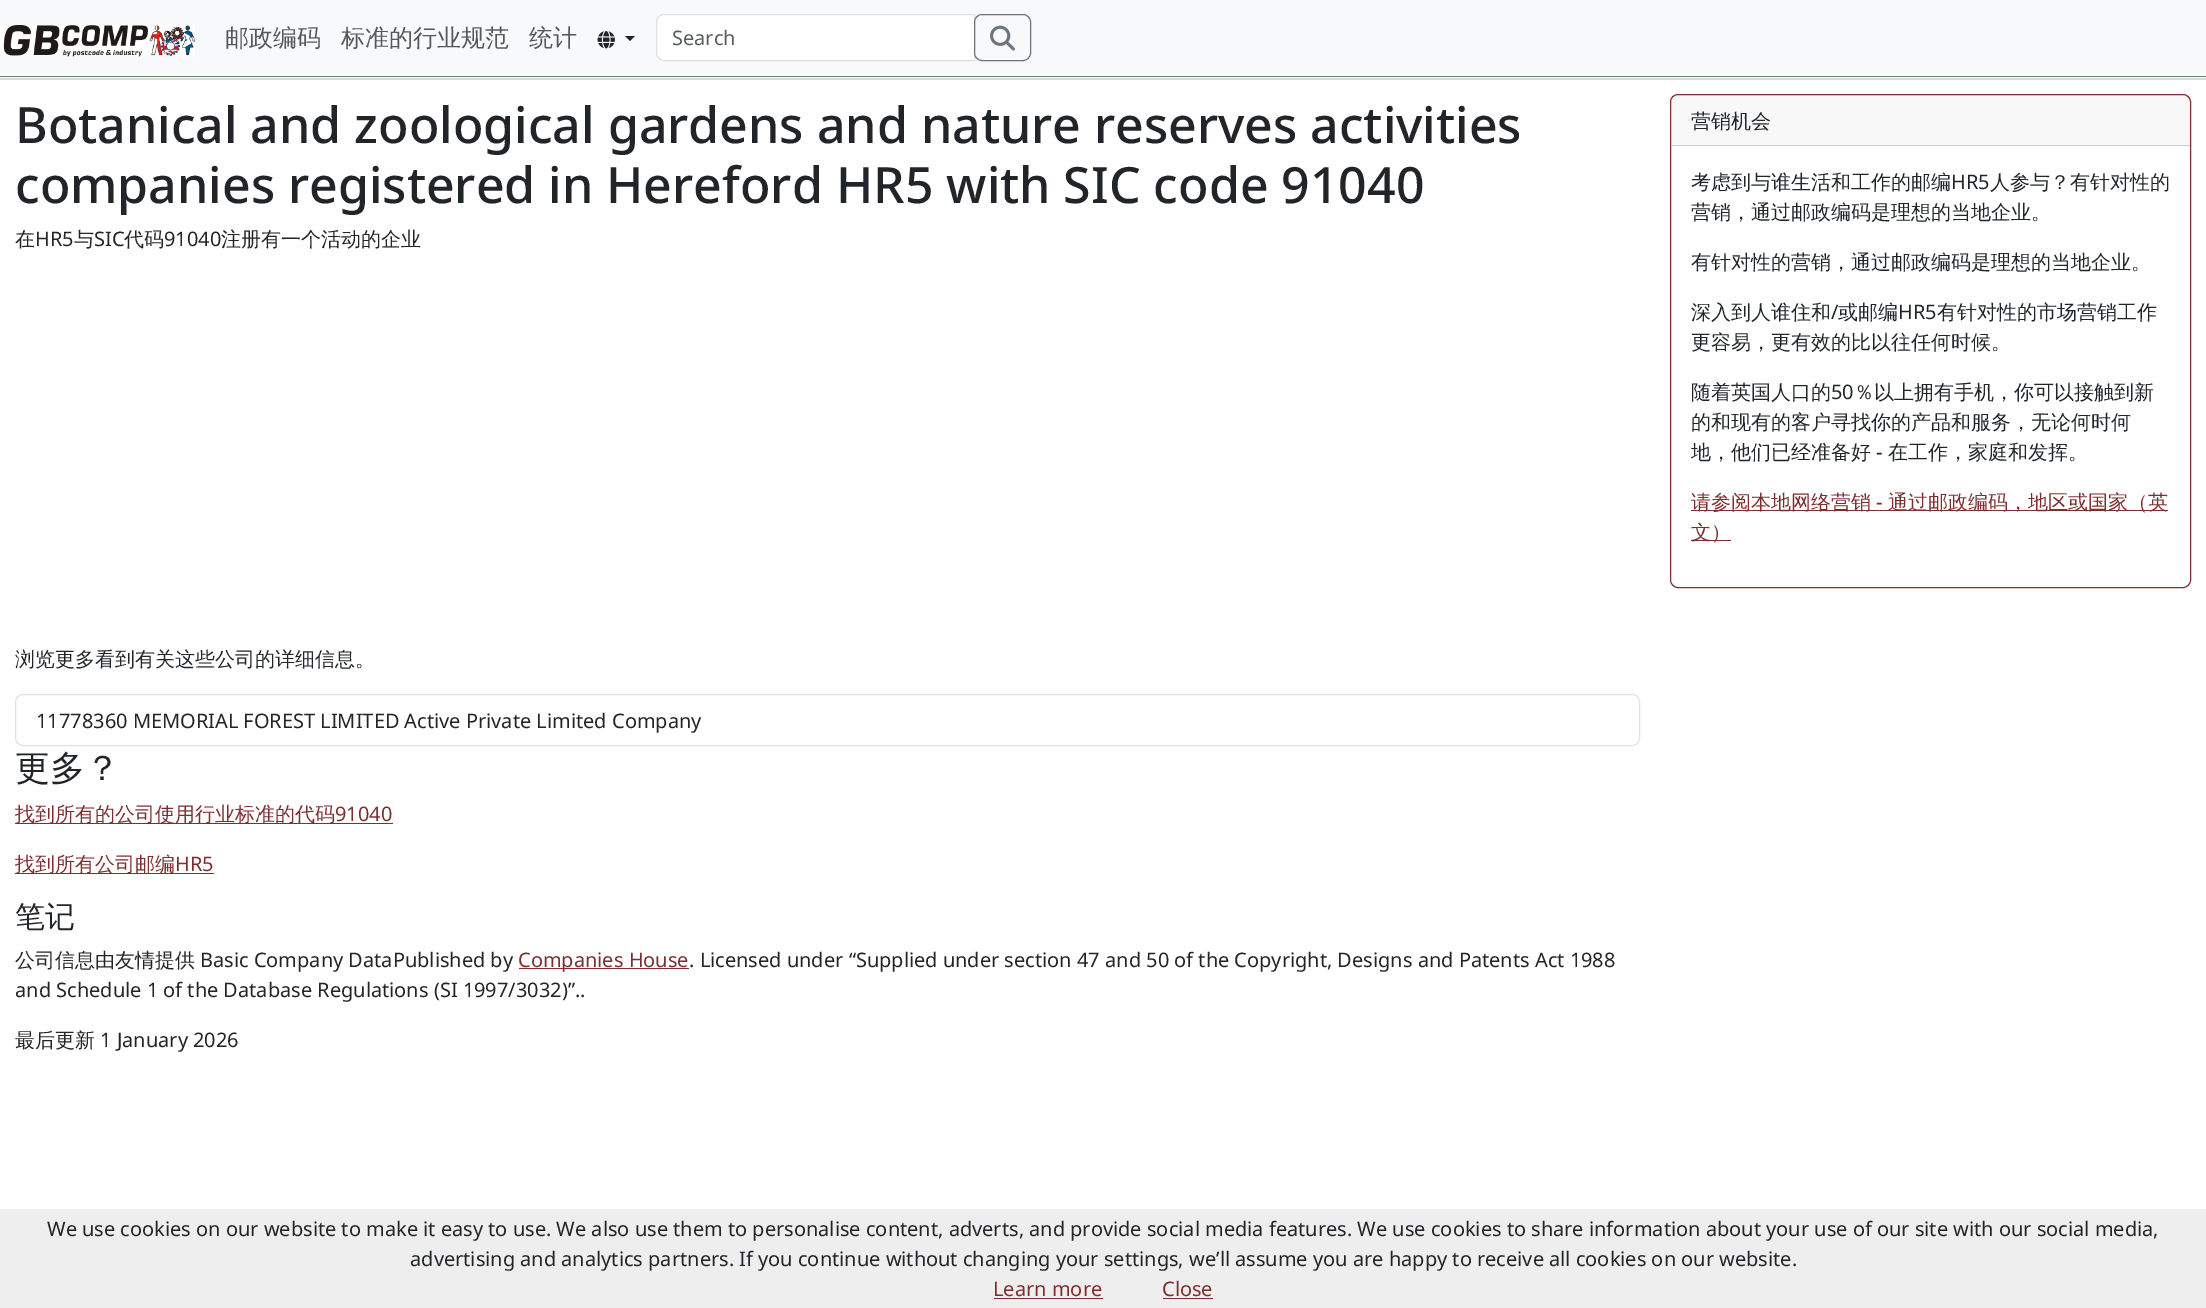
%!PS
<< /PageSize [2206 1308] /PageUsesTransparency true >> setpagedevice
/mt/moveto load def
/li/lineto load def
/ct/curveto load def
/cp/closepath load def
/fl/fill load def
/st/stroke load def
/co { dup -16 bitshift 255 div exch dup -8 bitshift 255 and 255 div exch 255 and 255 div setrgbcolor } def
/fn { [ exch dup neg 0 0 3 -1 roll 0 0 ] selectfont } def
/tx { co fn moveto show } def
/bx { co rectfill } def
/al { dup .setfillconstantalpha .setstrokeconstantalpha } def
/rr { 5 dict begin { /r /h /w /y /x } { exch def } forall
  x r add y moveto x w add y 2 copy h add r arct x w add y h add x 1 index r arct
  x y h add x y r arct x y 2 copy exch w add exch r arct closepath end } def
/im { 5 dict begin { /h /w /y /x /name } { exch def } forall
  gsave x y translate w h scale
  w h 8 [w 0 0 h 0 0] name (r) file false 3 colorimage grestore end } def
0 .pushpdf14devicefilter
0 1308 translate 1 -1 scale
4 setmiterlimit
0 0 2206 1308 16#FFFFFF bx
0 78 2206 2 16#CCE5CC bx
0 0 2206 78 16#F8F9FA bx
0 76 2206 1 16#777777 bx
(media/1.raw) 0 25 195 32 im
(media/2.raw) 597 31 18 18 im
16#212529 co
625 36 mt 635 36 li 630 41 li cp fl
16#FFFFFF co
664 15 mt 974 15 li 974 60 li 664 60 li 660.5 60 658 57.5 658 54 ct 658 21 li 658 17.5 660.5 15 664 15 ct cp fl
16#DEE2E6 co
664 14.5 mt 974.5 14.5 li 974.5 60.5 li 664 60.5 li 660 60.5 656.5 57 656.5 53 ct 656.5 22 li 656.5 18 660 14.5 664 14.5 ct cp st
16#6C757D co
974.5 14.5 56 46 7.5 rr st
(media/3.raw) 990 25 25 26 im
16#DEE2E6 co
15.5 694.5 1624 51 7.5 rr st
15 823 378 1 16#7D2F2F bx
15 873 199 1 16#7D2F2F bx
519 968 170 1 16#7D2F2F bx
1670.5 94.5 520 493 7.5 rr st
0.03 al
1671 95 519 50 16#212529 bx
1 al
1671 145 519 1 16#CDCDCD bx
1691 510 477 1 16#7D2F2F bx
1691 540 40 1 16#7D2F2F bx
0 1209 2206 99 16#EEEEEE bx
994 1298 109 1 16#7D2F2F bx
1163 1298 50 1 16#7D2F2F bx
(邮政编码) 225 46 /WenQuanYiZenHei-Medium 24 16#575758 tx
(标准的行业规范) 341 46 /WenQuanYiZenHei-Medium 24 16#575758 tx
(统计) 529 46 /WenQuanYiZenHei-Medium 24 16#575758 tx
(Search) 672 45 /NotoSans-Regular 20 16#595C5F tx
(Botanical and zoological gardens and nature reserves activities) 15 143 /NotoSans-Medium 50 16#212529 tx
(companies registered in Hereford HR5 with SIC code 91040) 15 203 /NotoSans-Medium 50 16#212529 tx
(在) 15 246 /WenQuanYiZenHei-Medium 20 16#212529 tx
(HR5) 35 246 /NotoSans-Regular 20 16#212529 tx
(与) 74 246 /WenQuanYiZenHei-Medium 20 16#212529 tx
(SIC) 94 246 /NotoSans-Regular 20 16#212529 tx
(代码) 124 246 /WenQuanYiZenHei-Medium 20 16#212529 tx
(91040) 164 246 /NotoSans-Regular 20 16#212529 tx
(注册有一个活动的企业) 221 246 /WenQuanYiZenHei-Medium 20 16#212529 tx
(浏览更多看到有关这些公司的详细信息。) 15 666 /WenQuanYiZenHei-Medium 20 16#212529 tx
(11778360 MEMORIAL FOREST LIMITED Active Private Limited Company) 36 728 /NotoSans-Regular 20 16#212529 tx
(更多？) 15 780 /WenQuanYiZenHei-Medium 35 16#212529 tx
(找到所有的公司使用行业标准的代码) 15 821 /WenQuanYiZenHei-Medium 20 16#7D2F2F tx
(91040) 335 821 /NotoSans-Regular 20 16#7D2F2F tx
(找到所有公司邮编) 15 871 /WenQuanYiZenHei-Medium 20 16#7D2F2F tx
(HR5) 175 871 /NotoSans-Regular 20 16#7D2F2F tx
(笔记) 15 927 /WenQuanYiZenHei-Medium 30 16#212529 tx
(公司信息由友情提供) 15 967 /WenQuanYiZenHei-Medium 20 16#212529 tx
(Basic Company DataPublished by) 200 967 /NotoSans-Regular 20 16#212529 tx
(Companies House) 518 967 /NotoSans-Regular 20 16#7D2F2F tx
(. Licensed under “Supplied under section 47 and 50 of the Copyright, Designs and Patents Act 1988) 689 967 /NotoSans-Regular 20 16#212529 tx
(and Schedule 1 of the Database Regulations \(SI 1997/3032\)”..) 15 997 /NotoSans-Regular 20 16#212529 tx
(最后更新) 15 1047 /WenQuanYiZenHei-Medium 20 16#212529 tx
(1 January 2026) 100 1047 /NotoSans-Regular 20 16#212529 tx
(营销机会) 1691 128 /WenQuanYiZenHei-Medium 20 16#212529 tx
(考虑到与谁生活和工作的邮编) 1691 189 /WenQuanYiZenHei-Medium 20 16#212529 tx
(HR5) 1951 189 /NotoSans-Regular 20 16#212529 tx
(人参与？有针对性的) 1990 189 /WenQuanYiZenHei-Medium 20 16#212529 tx
(营销，通过邮政编码是理想的当地企业。) 1691 219 /WenQuanYiZenHei-Medium 20 16#212529 tx
(有针对性的营销，通过邮政编码是理想的当地企业。) 1691 269 /WenQuanYiZenHei-Medium 20 16#212529 tx
(深入到人谁住和) 1691 319 /WenQuanYiZenHei-Medium 20 16#212529 tx
(/) 1831 319 /NotoSans-Regular 20 16#212529 tx
(或邮编) 1838 319 /WenQuanYiZenHei-Medium 20 16#212529 tx
(HR5) 1898 319 /NotoSans-Regular 20 16#212529 tx
(有针对性的市场营销工作) 1937 319 /WenQuanYiZenHei-Medium 20 16#212529 tx
(更容易，更有效的比以往任何时候。) 1691 349 /WenQuanYiZenHei-Medium 20 16#212529 tx
(随着英国人口的) 1691 399 /WenQuanYiZenHei-Medium 20 16#212529 tx
(50) 1831 399 /NotoSans-Regular 20 16#212529 tx
(％以上拥有手机，你可以接触到新) 1854 399 /WenQuanYiZenHei-Medium 20 16#212529 tx
(的和现有的客户寻找你的产品和服务，无论何时何) 1691 429 /WenQuanYiZenHei-Medium 20 16#212529 tx
(地，他们已经准备好) 1691 459 /WenQuanYiZenHei-Medium 20 16#212529 tx
(-) 1876 459 /NotoSans-Regular 20 16#212529 tx
(在工作，家庭和发挥。) 1888 459 /WenQuanYiZenHei-Medium 20 16#212529 tx
(请参阅本地网络营销) 1691 509 /WenQuanYiZenHei-Medium 20 16#7D2F2F tx
(-) 1876 509 /NotoSans-Regular 20 16#7D2F2F tx
(通过邮政编码，地区或国家（英) 1888 509 /WenQuanYiZenHei-Medium 20 16#7D2F2F tx
(文）) 1691 539 /WenQuanYiZenHei-Medium 20 16#7D2F2F tx
(We use cookies on our website to make it easy to use. We also use them to personalise content, adverts, and provide social media features. We use cookies to share information about your use of our site with our social media,) 47 1236 /NotoSans-Regular 20 16#212529 tx
(advertising and analytics partners. If you continue without changing your settings, we’ll assume you are happy to receive all cookies on our website.) 410 1266 /NotoSans-Regular 20 16#212529 tx
(Learn more) 993 1296 /NotoSans-Regular 20 16#7D2F2F tx
(Close) 1162 1296 /NotoSans-Regular 20 16#7D2F2F tx
.poppdf14devicefilter showpage
